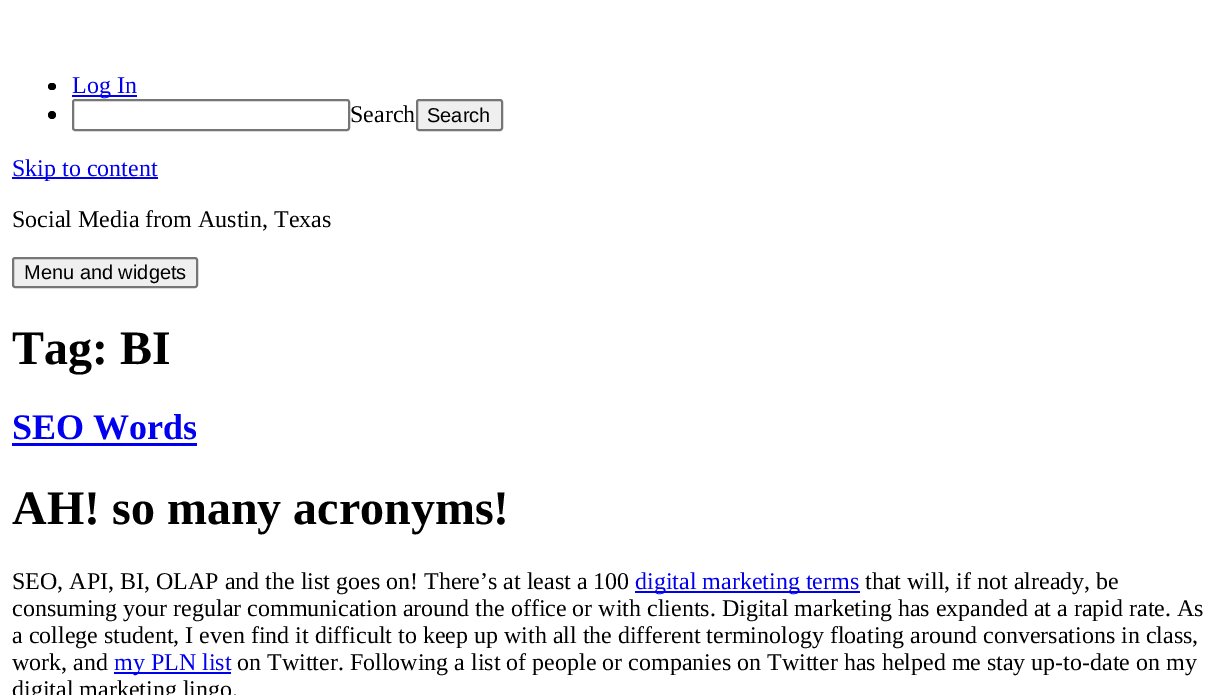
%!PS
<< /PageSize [1231 695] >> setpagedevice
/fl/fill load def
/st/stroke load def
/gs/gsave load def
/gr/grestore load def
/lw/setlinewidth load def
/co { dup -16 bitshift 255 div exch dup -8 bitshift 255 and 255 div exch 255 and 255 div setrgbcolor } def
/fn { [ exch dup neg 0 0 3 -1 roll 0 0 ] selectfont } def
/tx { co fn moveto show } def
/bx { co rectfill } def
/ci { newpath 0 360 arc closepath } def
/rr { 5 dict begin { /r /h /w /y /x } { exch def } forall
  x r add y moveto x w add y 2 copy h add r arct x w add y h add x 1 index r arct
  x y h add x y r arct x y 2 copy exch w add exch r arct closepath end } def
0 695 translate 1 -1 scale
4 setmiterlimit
0 0 1231 695 16#FFFFFF bx
16#000000 co
48 83 8 7 3.5 rr fl
72 95 65 2 16#0000EE bx
16#000000 co
52 115 4 ci fl
16#767676 co
2 lw
73 100 276 30 2 rr st
16#EFEFEF co
417 100 85 30 2 rr gs fl gr
16#767676 co
st
12 177 146 2 16#0000EE bx
16#EFEFEF co
13 258 184 29 2 rr gs fl gr
16#767676 co
st
12 443 185 3 16#0000EE bx
635 591 225 2 16#0000EE bx
114 672 117 2 16#0000EE bx
(Log In) 72 93 /LiberationSerif-Regular 24 16#0000EE tx
(Search) 350 122 /LiberationSerif-Regular 24 16#000000 tx
(Search) 427 122 /LiberationSans-Regular 20 16#000000 tx
(Skip to content) 12 176 /LiberationSerif-Regular 24 16#0000EE tx
(Social Media from Austin, Texas) 12 227 /LiberationSerif-Regular 24 16#000000 tx
(Menu and widgets) 24 279 /LiberationSans-Regular 20 16#000000 tx
(Tag: BI) 12 364 /LiberationSerif-Bold 48 16#000000 tx
(SEO Words) 12 439 /LiberationSerif-Bold 36 16#0000EE tx
(AH! so many acronyms!) 12 524 /LiberationSerif-Bold 48 16#000000 tx
(SEO, API, BI, OLAP and the list goes on! There’s at least a 100) 12 589 /LiberationSerif-Regular 24 16#000000 tx
(digital marketing terms) 635 589 /LiberationSerif-Regular 24 16#0000EE tx
(that will, if not already, be) 865 589 /LiberationSerif-Regular 24 16#000000 tx
(consuming your regular communication around the office or with clients. Digital marketing has expanded at a rapid rate. As) 12 616 /LiberationSerif-Regular 24 16#000000 tx
(a college student, I even find it difficult to keep up with all the different terminology floating around conversations in class,) 12 643 /LiberationSerif-Regular 24 16#000000 tx
(work, and) 12 670 /LiberationSerif-Regular 24 16#000000 tx
(my PLN list) 114 670 /LiberationSerif-Regular 24 16#0000EE tx
(on Twitter. Following a list of people or companies on Twitter has helped me stay up-to-date on my) 237 670 /LiberationSerif-Regular 24 16#000000 tx
(digital marketing lingo.) 12 697 /LiberationSerif-Regular 24 16#000000 tx
showpage
